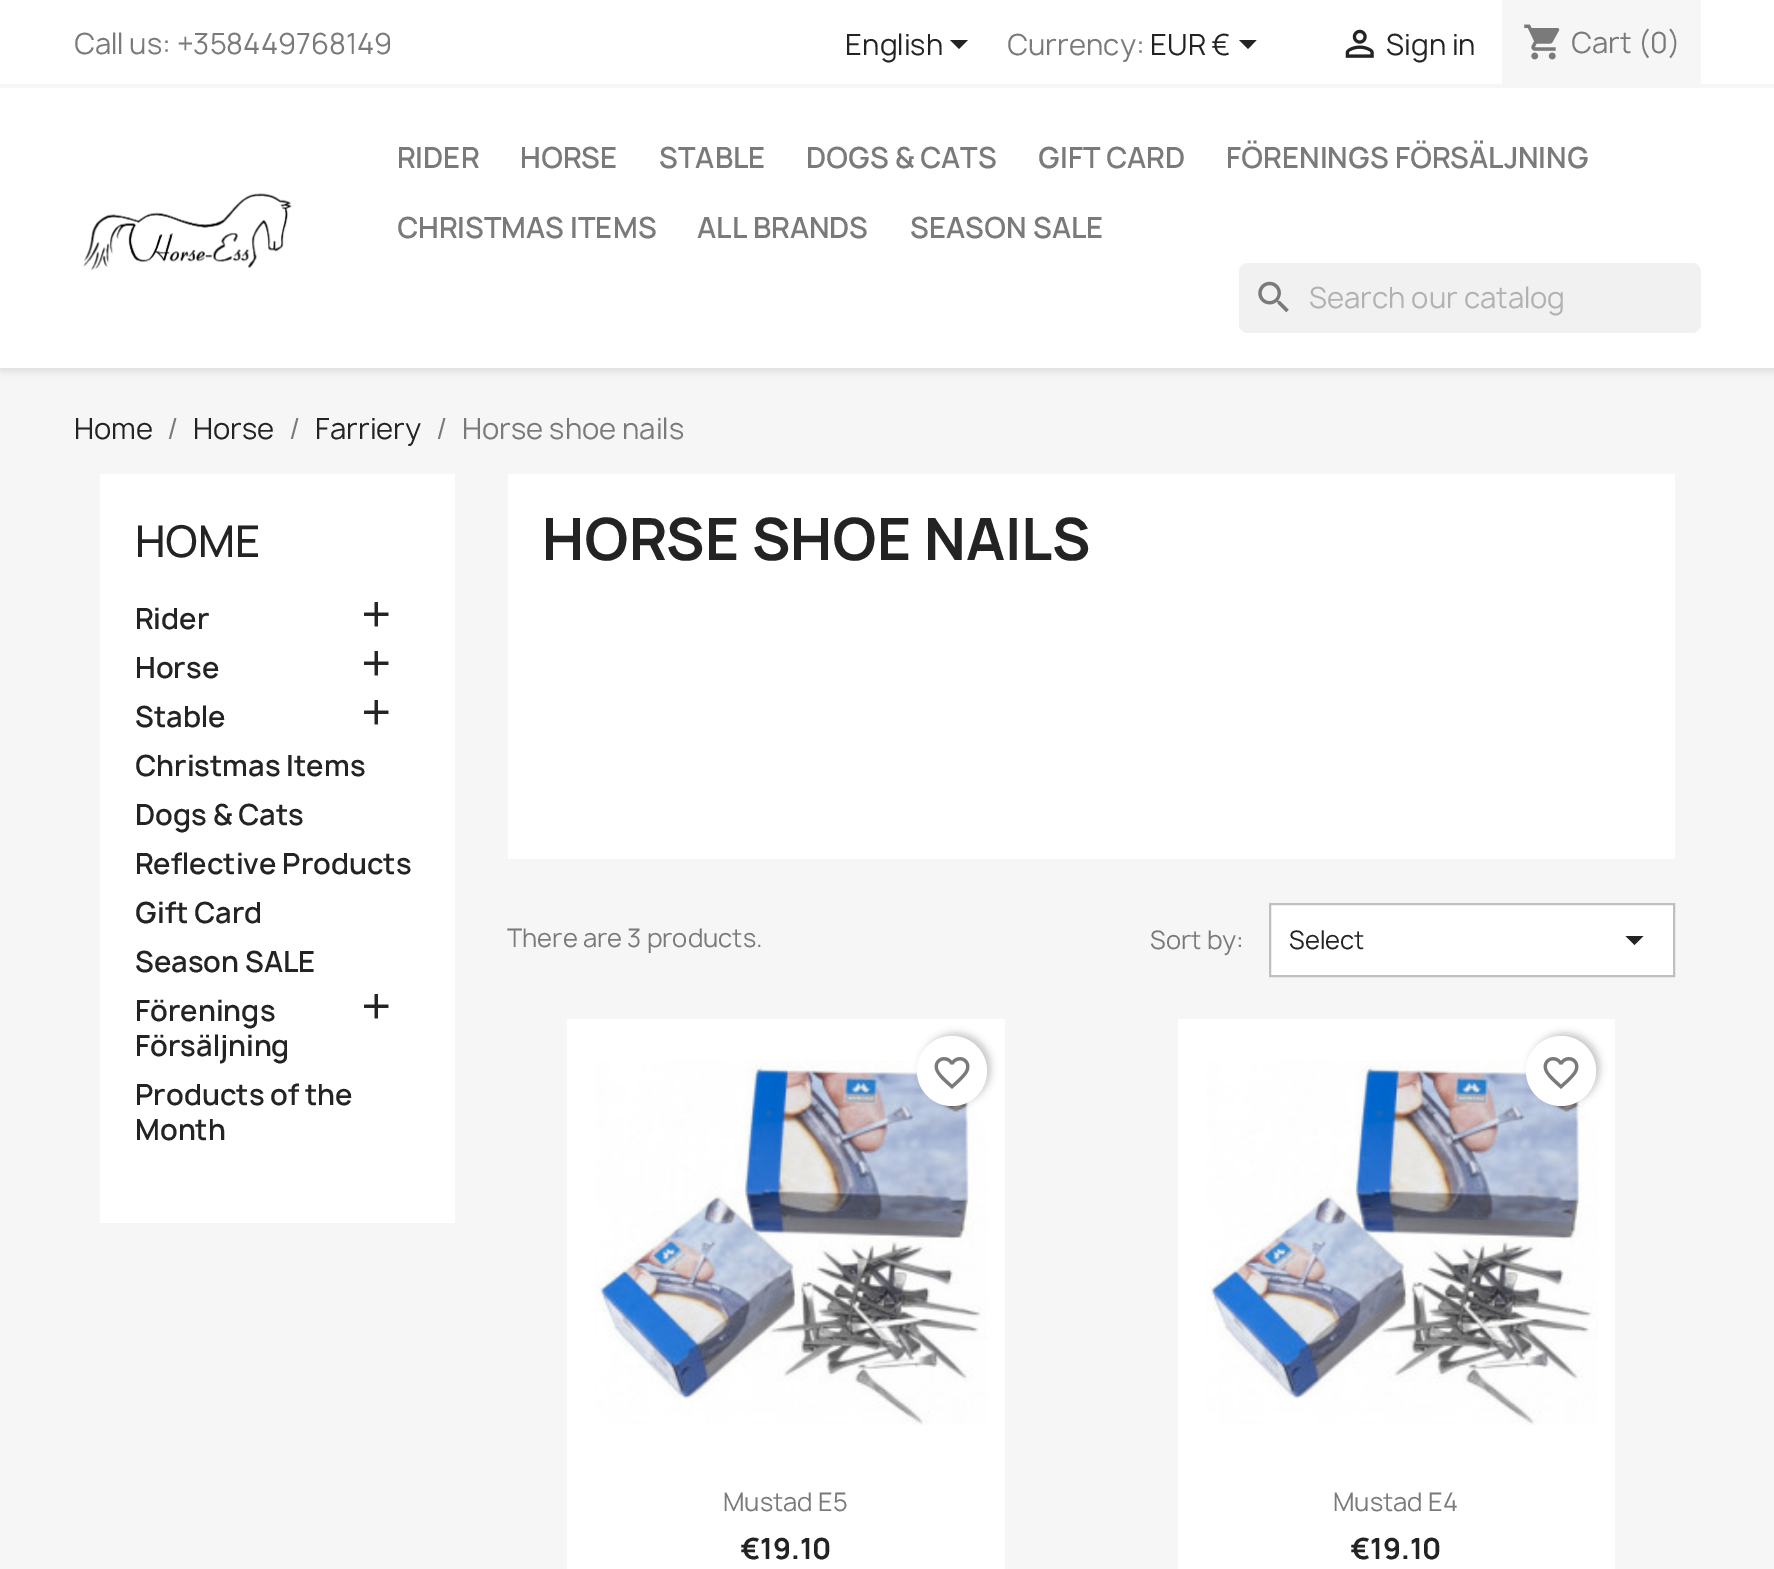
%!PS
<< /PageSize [1774 1569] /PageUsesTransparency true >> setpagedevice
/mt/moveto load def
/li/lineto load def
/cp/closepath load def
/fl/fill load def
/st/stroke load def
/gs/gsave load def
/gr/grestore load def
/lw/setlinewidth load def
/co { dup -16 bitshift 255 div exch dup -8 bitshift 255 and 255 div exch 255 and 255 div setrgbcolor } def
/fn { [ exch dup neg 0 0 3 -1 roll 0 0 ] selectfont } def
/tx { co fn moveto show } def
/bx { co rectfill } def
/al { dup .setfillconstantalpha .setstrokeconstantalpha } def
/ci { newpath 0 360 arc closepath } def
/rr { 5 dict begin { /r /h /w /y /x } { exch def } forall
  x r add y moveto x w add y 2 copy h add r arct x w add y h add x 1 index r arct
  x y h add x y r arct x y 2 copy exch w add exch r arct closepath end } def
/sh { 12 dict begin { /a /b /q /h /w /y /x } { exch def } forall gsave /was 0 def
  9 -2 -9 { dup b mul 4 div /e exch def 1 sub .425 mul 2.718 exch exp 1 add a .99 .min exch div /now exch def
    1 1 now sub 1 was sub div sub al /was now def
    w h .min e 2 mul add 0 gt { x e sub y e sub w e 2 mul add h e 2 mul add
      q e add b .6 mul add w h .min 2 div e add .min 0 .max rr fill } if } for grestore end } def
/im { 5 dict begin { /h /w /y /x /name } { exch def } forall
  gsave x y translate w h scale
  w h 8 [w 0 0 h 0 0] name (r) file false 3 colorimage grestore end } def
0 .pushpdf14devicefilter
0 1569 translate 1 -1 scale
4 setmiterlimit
0 0 1774 1569 16#F6F6F6 bx
16#000000 co
0 4 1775 367 0 4.5 .11 sh
0 0 1774 368 16#FFFFFF bx
0 84 1774 4 16#F6F6F6 bx
16#232323 co
950 40 mt 968 40 li 959 49 li cp fl
1239 40 mt 1256.5 40 li 1248 49 li cp fl
(media/1.raw) 1345 29 29 29 im
1502 0 199 84 16#F6F6F6 bx
(media/2.raw) 1524 24 36 36 im
(media/3.raw) 83 193 209 78 im
16#F1F1F1 co
1239 263 462 70 9 rr fl
(media/4.raw) 1258 281 31 32 im
100 474 355 749 16#FFFFFF bx
(media/5.raw) 364 602 25 25 im
(media/5.raw) 364 651 25 25 im
(media/5.raw) 364 700 25 25 im
(media/5.raw) 364 994 25 25 im
508 474 1167 385 16#FFFFFF bx
1270 904 mt 1674 904 li 1674 976 li 1270 976 li cp gs fl gr
16#BFBFBF co
2 lw
st
16#232323 co
1625.5 936 mt 1643.5 936 li 1634.5 945 li cp fl
567 1019 438 550 16#FFFFFF bx
(media/7.raw) 595 1060 392 365 im
16#000000 co
921 1033 70 70 35 3.5 .2 sh
16#FFFFFF co
952 1071 35 ci fl
(media/6.raw) 934 1057 36 32 im
1178 1019 437 550 16#FFFFFF bx
(media/8.raw) 1206 1060 392 365 im
16#000000 co
1530 1033 70 70 35 3.5 .2 sh
16#FFFFFF co
1561 1071 35 ci fl
(media/6.raw) 1543 1057 36 32 im
(Call us: +358449768149) 74 54 /Manrope-Regular 28 16#7A7A7A tx
(English) 845 55 /Manrope-Regular 28 16#232323 tx
(Currency:) 1007 55 /Manrope-Regular 28 16#7A7A7A tx
(EUR €) 1150 55 /Manrope-Regular 28 16#232323 tx
(Sign in) 1386 55 /Manrope-Regular 28 16#232323 tx
(Cart \(0\)) 1571 53 /Manrope-Regular 28 16#7A7A7A tx
(RIDER) 397 168 /Manrope-SemiBold 28 16#7A7A7A tx
(HORSE) 520 168 /Manrope-SemiBold 28 16#7A7A7A tx
(STABLE) 659 168 /Manrope-SemiBold 28 16#7A7A7A tx
(DOGS & CATS) 806 168 /Manrope-SemiBold 28 16#7A7A7A tx
(GIFT CARD) 1038 168 /Manrope-SemiBold 28 16#7A7A7A tx
(FÖRENINGS FÖRSÄLJNING) 1226 168 /Manrope-SemiBold 28 16#7A7A7A tx
(CHRISTMAS ITEMS) 397 238 /Manrope-SemiBold 28 16#7A7A7A tx
(ALL BRANDS) 697 238 /Manrope-SemiBold 28 16#7A7A7A tx
(SEASON SALE) 910 238 /Manrope-SemiBold 28 16#7A7A7A tx
(Search our catalog) 1309 308 /Manrope-Regular 28 16#B1B1B1 tx
(Home) 74 439 /Manrope-Regular 28 16#232323 tx
(/) 167 439 /Manrope-Regular 28 16#7A7A7A tx
(Horse) 193 439 /Manrope-Regular 28 16#232323 tx
(/) 289 439 /Manrope-Regular 28 16#7A7A7A tx
(Farriery) 315 439 /Manrope-Regular 28 16#232323 tx
(/) 436 439 /Manrope-Regular 28 16#7A7A7A tx
(Horse shoe nails) 462 439 /Manrope-Regular 28 16#7A7A7A tx
(HOME) 135 557 /Manrope-Medium 42 16#232323 tx
(Rider) 135 629 /Manrope-SemiBold 28 16#232323 tx
(Horse) 135 678 /Manrope-SemiBold 28 16#232323 tx
(Stable) 135 727 /Manrope-SemiBold 28 16#232323 tx
(Christmas Items) 135 776 /Manrope-SemiBold 28 16#232323 tx
(Dogs & Cats) 135 825 /Manrope-SemiBold 28 16#232323 tx
(Reflective Products) 135 874 /Manrope-SemiBold 28 16#232323 tx
(Gift Card) 135 923 /Manrope-SemiBold 28 16#232323 tx
(Season SALE) 135 972 /Manrope-SemiBold 28 16#232323 tx
(Förenings) 135 1021 /Manrope-SemiBold 28 16#232323 tx
(Försäljning) 135 1056 /Manrope-SemiBold 28 16#232323 tx
(Products of the) 135 1105 /Manrope-SemiBold 28 16#232323 tx
(Month) 135 1140 /Manrope-SemiBold 28 16#232323 tx
(HORSE SHOE NAILS) 542 560 /Manrope-Bold 56 16#232323 tx
(There are 3 products.) 507 947 /Manrope-Regular 24.5 16#7A7A7A tx
(Sort by:) 1150 949 /Manrope-Regular 24.5 16#7A7A7A tx
(Select) 1289 949 /Manrope-Regular 24.5 16#232323 tx
(Mustad E5) 723 1511 /Manrope-Regular 24.5 16#7A7A7A tx
(€19.10) 740 1559 /Manrope-Bold 28 16#232323 tx
(Mustad E4) 1333 1511 /Manrope-Regular 24.5 16#7A7A7A tx
(€19.10) 1350 1559 /Manrope-Bold 28 16#232323 tx
.poppdf14devicefilter showpage
